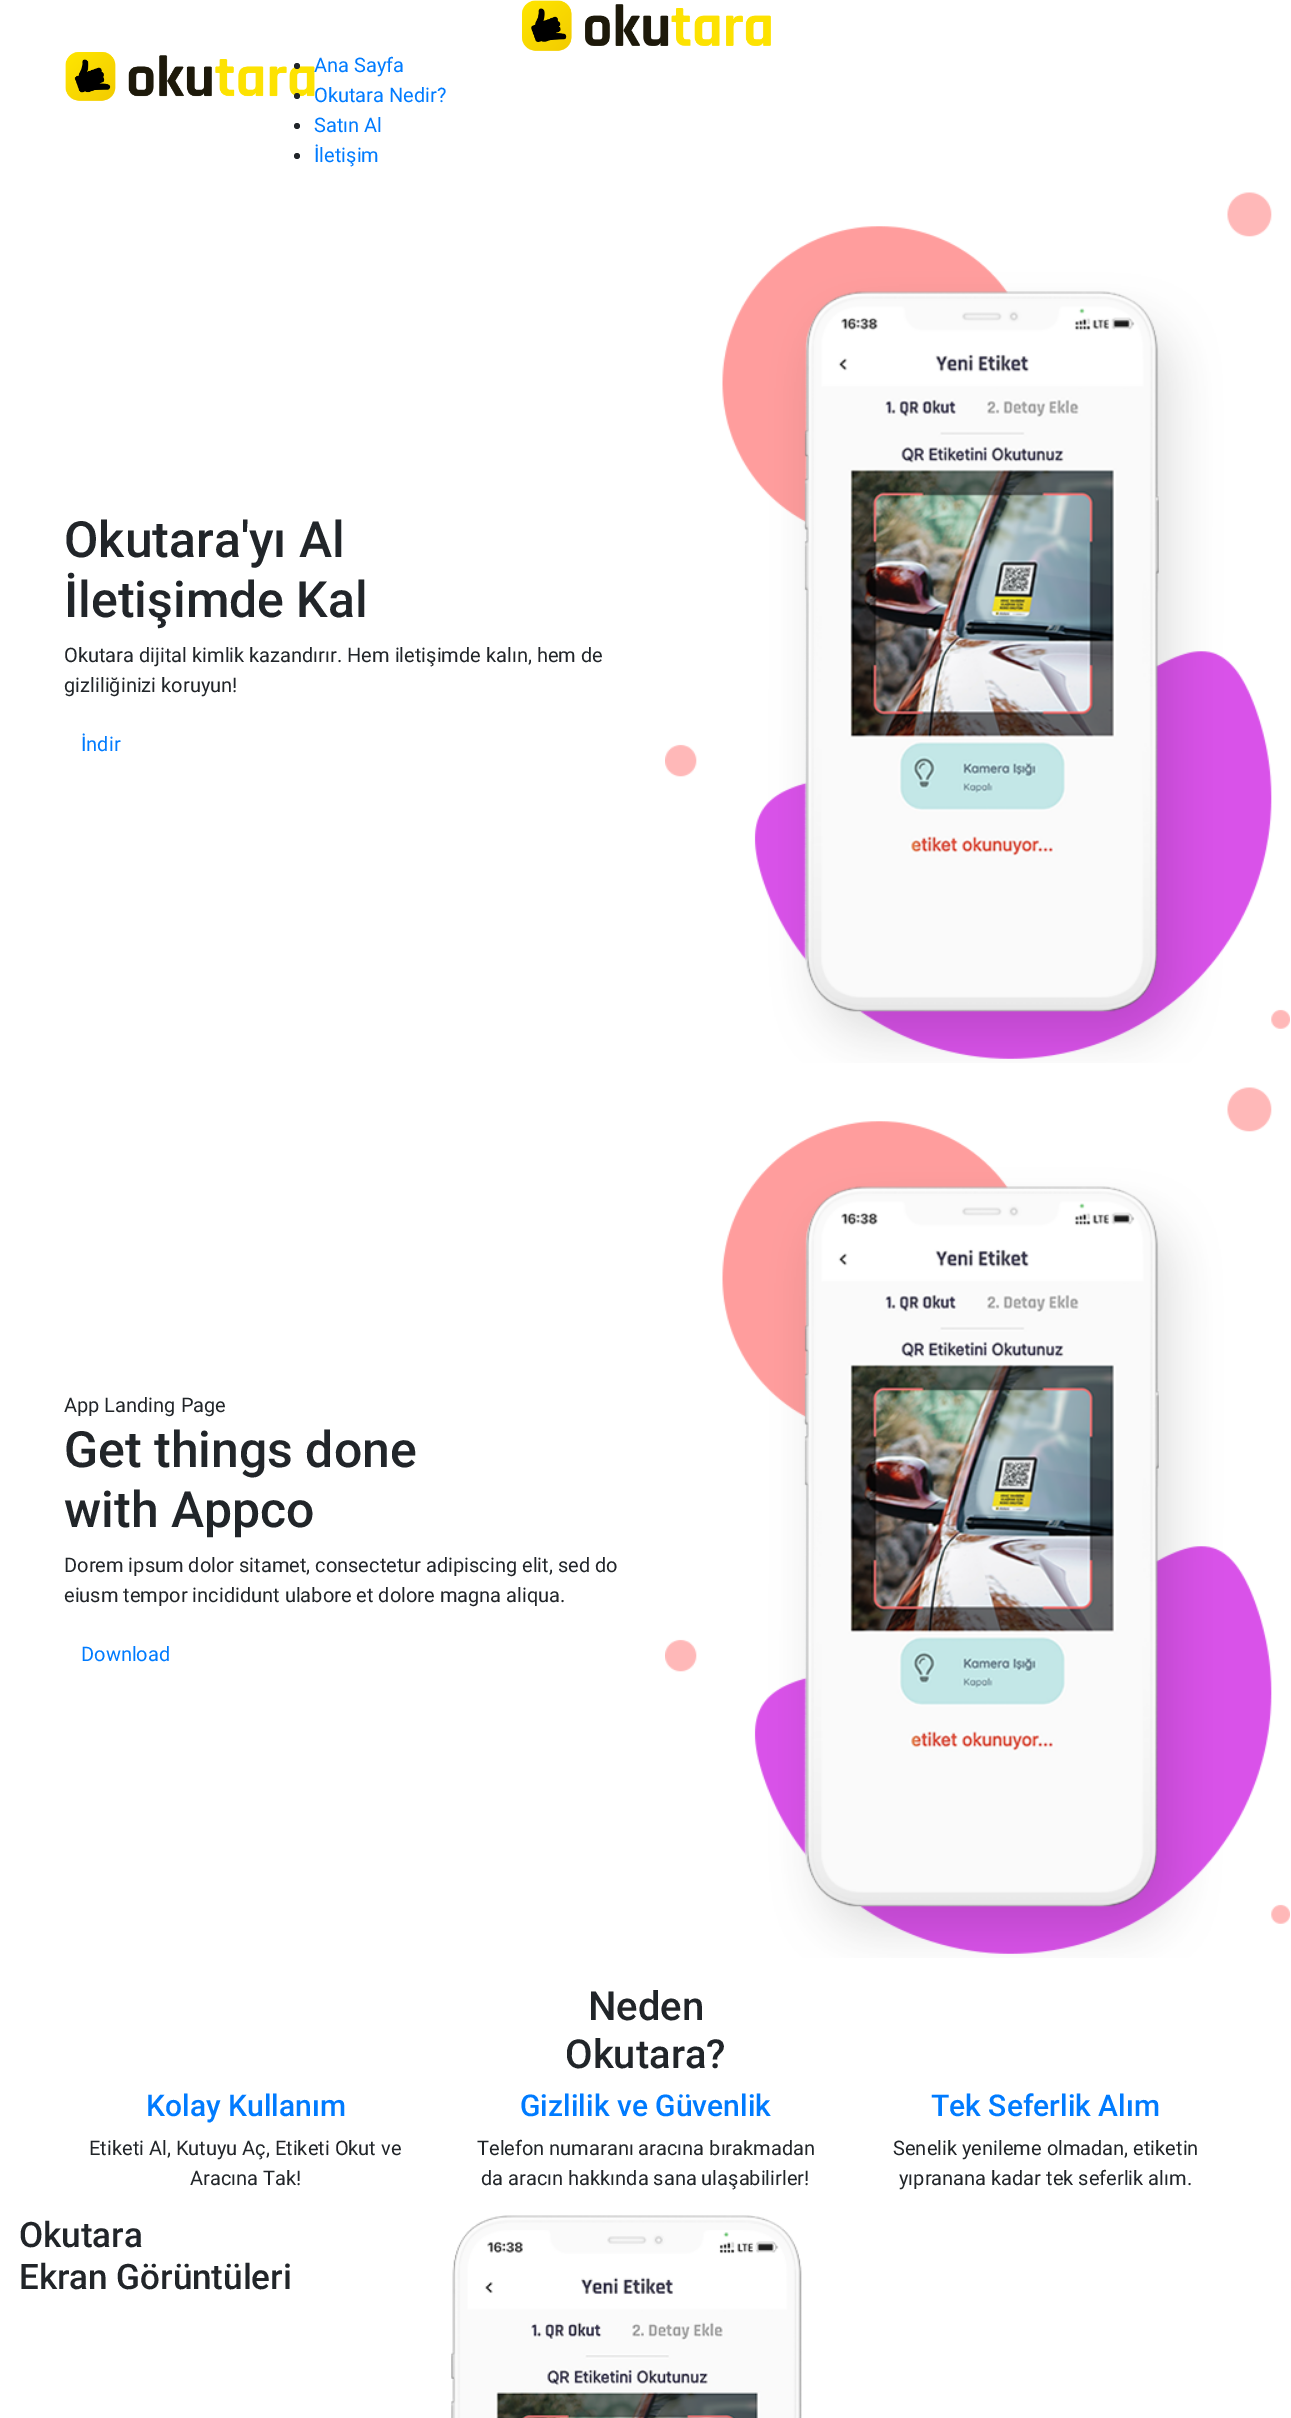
%!PS
<< /PageSize [1291 2418] >> setpagedevice
/fl/fill load def
/co { dup -16 bitshift 255 div exch dup -8 bitshift 255 and 255 div exch 255 and 255 div setrgbcolor } def
/fn { [ exch dup neg 0 0 3 -1 roll 0 0 ] selectfont } def
/tx { co fn moveto show } def
/bx { co rectfill } def
/ci { newpath 0 360 arc closepath } def
/im { 5 dict begin { /h /w /y /x /name } { exch def } forall
  gsave x y translate w h scale
  w h 8 [w 0 0 h 0 0] name (r) file false 3 colorimage grestore end } def
0 2418 translate 1 -1 scale
4 setmiterlimit
0 0 1291 2418 16#FFFFFF bx
(media/1.raw) 522 0 249 51 im
(media/2.raw) 65 52 250 49 im
16#212529 co
297 66 3 ci fl
297 96 3 ci fl
297 126 3 ci fl
297 156 3 ci fl
(media/3.raw) 665 192 625 871 im
(media/3.raw) 665 1087 625 871 im
(media/4.raw) 451 2215 351 203 im
(Ana Sayfa) 314 72 /Roboto-Regular 20 16#007BFF tx
(Okutara Nedir?) 314 102 /Roboto-Regular 20 16#007BFF tx
(Satın Al) 314 132 /Roboto-Regular 20 16#007BFF tx
(İletişim) 314 162 /Roboto-Regular 20 16#007BFF tx
(Okutara'yı Al) 64 557 /Roboto-Medium 50 16#212529 tx
(İletişimde Kal) 64 617 /Roboto-Medium 50 16#212529 tx
(Okutara dijital kimlik kazandırır. Hem iletişimde kalın, hem de) 64 662 /Roboto-Regular 20 16#212529 tx
(gizliliğinizi koruyun!) 64 692 /Roboto-Regular 20 16#212529 tx
(İndir) 81 751 /Roboto-Regular 20 16#007BFF tx
(App Landing Page) 64 1412 /Roboto-Regular 20 16#212529 tx
(Get things done) 64 1467 /Roboto-Medium 50 16#212529 tx
(with Appco) 64 1527 /Roboto-Medium 50 16#212529 tx
(Dorem ipsum dolor sitamet, consectetur adipiscing elit, sed do) 64 1572 /Roboto-Regular 20 16#212529 tx
(eiusm tempor incididunt ulabore et dolore magna aliqua.) 64 1602 /Roboto-Regular 20 16#212529 tx
(Download) 81 1661 /Roboto-Regular 20 16#007BFF tx
(Neden) 588 2020 /Roboto-Medium 40 16#212529 tx
(Okutara?) 565 2068 /Roboto-Medium 40 16#212529 tx
(Kolay Kullanım) 146 2116 /Roboto-Medium 30 16#007BFF tx
(Etiketi Al, Kutuyu Aç, Etiketi Okut ve) 89 2155 /Roboto-Regular 20 16#212529 tx
(Aracına Tak!) 190 2185 /Roboto-Regular 20 16#212529 tx
(Gizlilik ve Güvenlik) 520 2116 /Roboto-Medium 30 16#007BFF tx
(Telefon numaranı aracına bırakmadan) 477 2155 /Roboto-Regular 20 16#212529 tx
(da aracın hakkında sana ulaşabilirler!) 481 2185 /Roboto-Regular 20 16#212529 tx
(Tek Seferlik Alım) 931 2116 /Roboto-Medium 30 16#007BFF tx
(Senelik yenileme olmadan, etiketin) 893 2155 /Roboto-Regular 20 16#212529 tx
(yıpranana kadar tek seferlik alım.) 899 2185 /Roboto-Regular 20 16#212529 tx
(Okutara) 19 2247 /Roboto-Medium 35 16#212529 tx
(Ekran Görüntüleri) 19 2289 /Roboto-Medium 35 16#212529 tx
showpage
